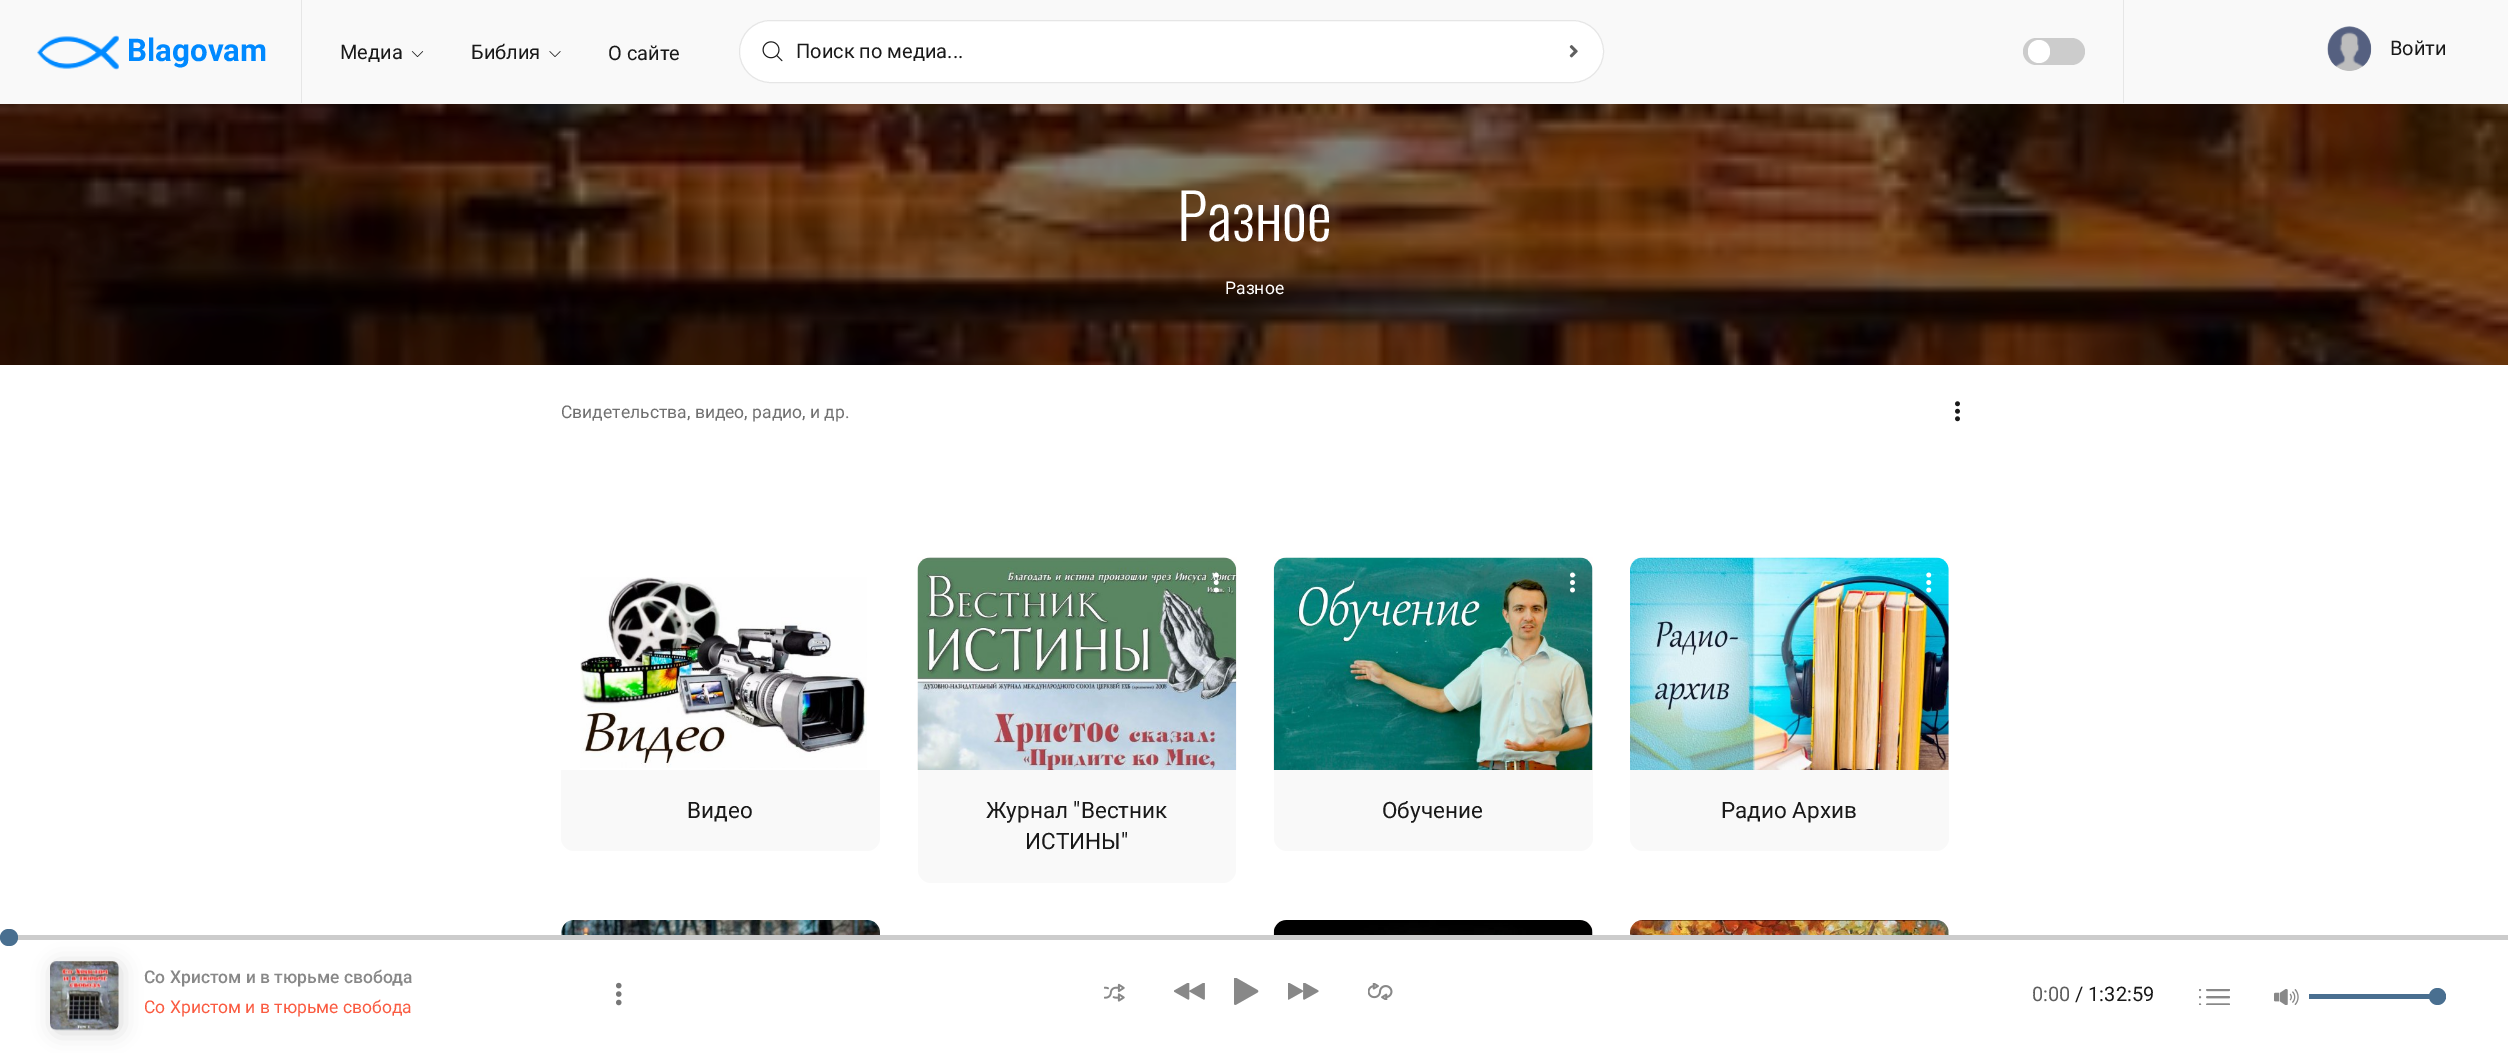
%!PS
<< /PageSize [2508 1053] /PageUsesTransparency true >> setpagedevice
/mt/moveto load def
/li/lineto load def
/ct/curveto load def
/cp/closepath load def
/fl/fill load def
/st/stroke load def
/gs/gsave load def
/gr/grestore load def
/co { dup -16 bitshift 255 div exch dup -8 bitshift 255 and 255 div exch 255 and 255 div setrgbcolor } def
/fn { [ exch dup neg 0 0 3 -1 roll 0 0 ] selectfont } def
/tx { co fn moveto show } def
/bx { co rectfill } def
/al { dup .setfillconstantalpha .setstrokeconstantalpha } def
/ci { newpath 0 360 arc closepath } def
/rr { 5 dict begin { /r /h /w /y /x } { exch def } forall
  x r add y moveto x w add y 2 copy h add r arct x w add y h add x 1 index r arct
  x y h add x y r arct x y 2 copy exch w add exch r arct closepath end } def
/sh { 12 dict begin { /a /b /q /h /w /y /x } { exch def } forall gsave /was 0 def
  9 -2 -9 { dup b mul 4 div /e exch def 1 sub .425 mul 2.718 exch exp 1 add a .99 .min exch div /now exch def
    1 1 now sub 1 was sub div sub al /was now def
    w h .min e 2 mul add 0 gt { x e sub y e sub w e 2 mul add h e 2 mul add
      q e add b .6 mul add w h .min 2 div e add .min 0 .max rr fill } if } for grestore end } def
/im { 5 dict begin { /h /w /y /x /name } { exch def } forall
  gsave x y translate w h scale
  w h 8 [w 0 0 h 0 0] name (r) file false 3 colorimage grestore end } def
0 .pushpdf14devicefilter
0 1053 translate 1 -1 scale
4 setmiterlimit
0 0 2508 1053 16#FFFFFF bx
0 0 2508 104 16#F9F9F9 bx
(media/1.raw) 37 35 82 35 im
301 0 1 103 16#E6E6E6 bx
(media/2.raw) 411 51 13 6 im
(media/3.raw) 549 51 12 6 im
16#FFFFFF co
739.5 20.5 864 62 31 rr gs fl gr
16#E6E6E6 co
st
(media/4.raw) 762 41 21 21 im
(media/5.raw) 1569 45 9 13 im
16#CCCCCC co
2023 38 62 27 13.5 rr fl
16#FFFFFF co
2028 40 22 23 11 rr fl
2123 0 1 103 16#E6E6E6 bx
(media/6.raw) 2327 26 45 45 im
(media/7.raw) 0 104 2508 261 im
(media/8.raw) 1955 401 5 21 im
(media/9.raw) 580 577 287 191 im
16#F9F9F9 co
561 770 mt 880 770 li 880 838 li 880 845 874 851 867 851 ct 574 851 li 567 851 561 845 561 838 ct cp fl
(media/10.raw) 917 557 320 213 im
(media/11.raw) 1213 572 6 21 im
918 770 mt 1236 770 li 1236 870 li 1236 877 1230 883 1223 883 ct 931 883 li 924 883 918 877 918 870 ct cp fl
(media/12.raw) 1273 557 320 213 im
(media/13.raw) 1570 572 5 21 im
1274 770 mt 1593 770 li 1593 838 li 1593 845 1587 851 1580 851 ct 1287 851 li 1280 851 1274 845 1274 838 ct cp fl
(media/14.raw) 1630 557 319 213 im
(media/15.raw) 1926 572 6 21 im
1630 770 mt 1949 770 li 1949 838 li 1949 845 1943 851 1936 851 ct 1643 851 li 1636 851 1630 845 1630 838 ct cp fl
(media/16.raw) 561 920 319 15 im
(media/17.raw) 1273 920 320 15 im
(media/18.raw) 1630 920 319 15 im
0 935 2508 5 16#CCCCCC bx
16#496F90 co
0 929 18 17 8.5 rr fl
16#000000 co
53 964 68 69 6 10 .15 sh
(media/19.raw) 50 961 69 70 im
(media/20.raw) 616 982 6 24 im
(media/21.raw) 1104 983 21 19 im
(media/22.raw) 1174 983 31 17 im
(media/23.raw) 1234 978 25 27 im
(media/24.raw) 1288 983 31 17 im
(media/25.raw) 1368 983 25 17 im
(media/26.raw) 2199 989 31 16 im
(media/27.raw) 2274 989 25 16 im
2309 994 137 5 16#496F90 bx
2437.5 996.5 8.5 ci fl
(Blagovam) 127 61 /Roboto-Bold 31.25 16#0089FF tx
(Медиа) 340 59 /Roboto-Regular 20 16#191919 tx
(Библия) 471 59 /Roboto-Regular 20 16#191919 tx
(О сайте) 608 60 /Roboto-Regular 20 16#191919 tx
(Поиск по медиа...) 796 58 /Roboto-Regular 20 16#191919 tx
(Войти) 2390 55 /Roboto-Regular 20 16#191919 tx
(Разное) 1177 241 /Oswald-Light 62.5 16#FFFFFF tx
(Разное) 1225 294 /Roboto-Regular 17.5 16#FFFFFF tx
(Свидетельства, видео, радио, и др.) 561 418 /Roboto-Regular 17.5 16#707070 tx
(Видео) 687 818 /Roboto-Regular 22.5 16#191919 tx
(Журнал "Вестник) 986 818 /Roboto-Regular 22.5 16#191919 tx
(ИСТИНЫ") 1025 849 /Roboto-Regular 22.5 16#191919 tx
(Обучение) 1382 818 /Roboto-Regular 22.5 16#191919 tx
(Радио Архив) 1721 818 /Roboto-Regular 22.5 16#191919 tx
(Со Христом и в тюрьме свобода) 144 983 /Roboto-Medium 17.5 16#888888 tx
(Со Христом и в тюрьме свобода) 144 1013 /Roboto-Regular 17.5 16#FA5B41 tx
(0:00) 2032 1001 /Roboto-Regular 20 16#5E5E5E tx
(/ 1:32:59) 2075 1001 /Roboto-Regular 20 16#191919 tx
.poppdf14devicefilter showpage
